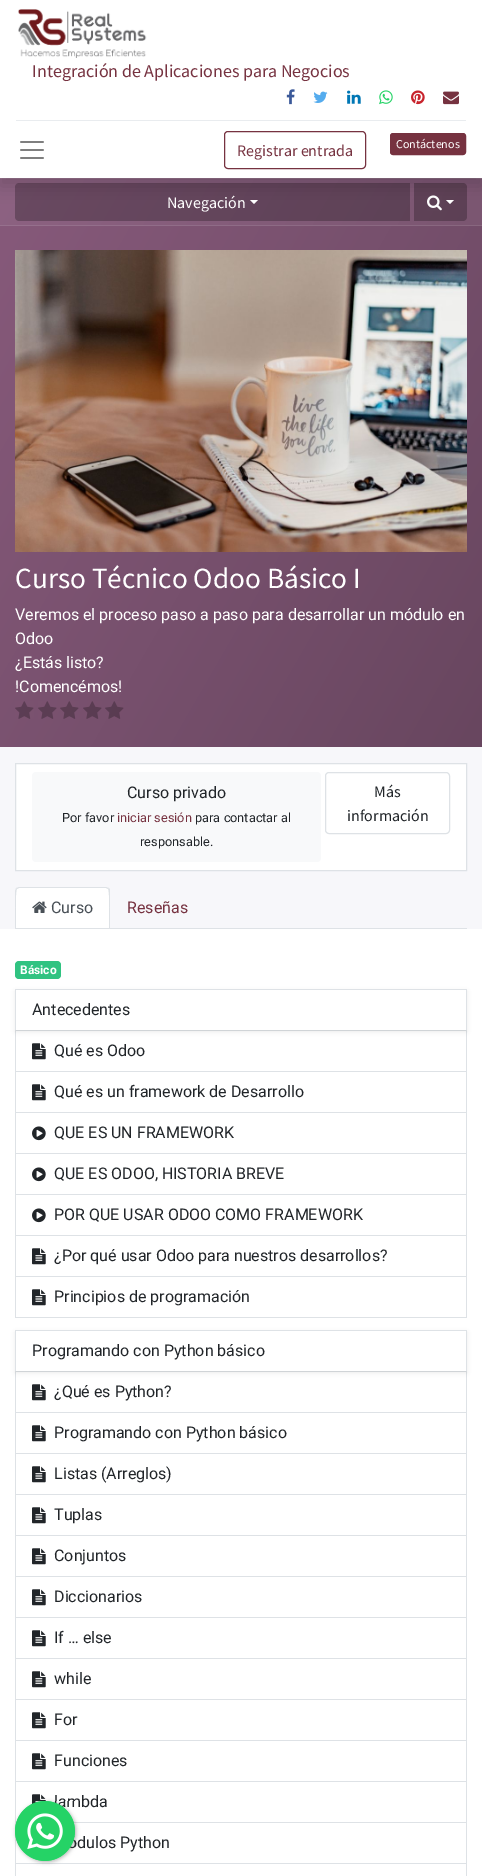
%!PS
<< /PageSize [482 1876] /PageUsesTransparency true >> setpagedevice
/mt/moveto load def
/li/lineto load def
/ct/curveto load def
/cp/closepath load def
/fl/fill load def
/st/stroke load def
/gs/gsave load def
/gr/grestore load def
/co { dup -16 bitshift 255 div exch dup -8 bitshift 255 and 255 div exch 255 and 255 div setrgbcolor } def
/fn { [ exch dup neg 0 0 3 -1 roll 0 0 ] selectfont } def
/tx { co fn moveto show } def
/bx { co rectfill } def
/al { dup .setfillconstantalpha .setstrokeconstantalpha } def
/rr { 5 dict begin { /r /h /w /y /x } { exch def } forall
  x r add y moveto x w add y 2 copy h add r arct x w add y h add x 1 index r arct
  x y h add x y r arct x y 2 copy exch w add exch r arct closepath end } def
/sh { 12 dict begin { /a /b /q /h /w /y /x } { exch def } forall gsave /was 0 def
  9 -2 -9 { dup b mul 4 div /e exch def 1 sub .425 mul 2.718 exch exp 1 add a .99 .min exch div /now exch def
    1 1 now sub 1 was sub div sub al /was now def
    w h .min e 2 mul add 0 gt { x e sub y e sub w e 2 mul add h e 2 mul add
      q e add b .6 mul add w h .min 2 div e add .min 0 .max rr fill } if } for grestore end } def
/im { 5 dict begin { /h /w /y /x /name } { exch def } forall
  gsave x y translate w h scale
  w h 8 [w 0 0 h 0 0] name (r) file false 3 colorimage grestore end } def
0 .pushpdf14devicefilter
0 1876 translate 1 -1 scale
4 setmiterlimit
0 0 482 1876 16#F7F7FA bx
gs 0 179 mt 482 179 li 482 225 li 0 225 li cp clip newpath
<< /ShadingType 2 /ColorSpace /DeviceRGB /Coords [-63 287 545 638] /Extend [true true] /Function << /FunctionType 2 /Domain [0 1] /C0 [.553 .384 .51] /C1 [.439 .31 .404] /N 1 >> >> shfill gr
gs 0 178 mt 482 178 li 482 179 li 0 179 li cp clip newpath
<< /ShadingType 2 /ColorSpace /DeviceRGB /Coords [-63 287 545 638] /Extend [true true] /Function << /FunctionType 2 /Domain [0 1] /C0 [.596 .447 .561] /C1 [.494 .38 .463] /N 1 >> >> shfill gr
0.25 al
16#000000 co
19 183 mt 410 183 li 410 221 li 19 221 li 17 221 15 219 15 217 ct 15 187 li 15 185 17 183 19 183 ct cp fl
1 al
16#FFFFFF co
250 200 mt 258 200 li 254 204 li cp fl
0.25 al
16#000000 co
414 183 mt 463 183 li 465 183 467 185 467 187 ct 467 217 li 467 219 465 221 463 221 ct 414 221 li cp fl
1 al
(media/9.raw) 427 195 15 16 im
16#FFFFFF co
446 200 mt 454 200 li 450 204 li cp fl
16#000000 co
0 8 482 178 0 8 .15 sh
0 0 482 178 16#FFFFFF bx
(media/1.raw) 18 9 129 49 im
(media/2.raw) 286 89 9 16 im
(media/3.raw) 313 91 15 12 im
(media/4.raw) 347 90 14 14 im
(media/5.raw) 379 90 14 15 im
(media/6.raw) 411 90 14 15 im
(media/7.raw) 443 91 16 14 im
16 120 450 1 16#E9ECEF bx
(media/8.raw) 20 141 24 18 im
16#763240 co
224.5 131.5 141 37 3.5 rr st
390.5 133.5 75 21 2.5 rr gs fl gr
st
gs 0 226 mt 482 226 li 482 747 li 0 747 li cp clip newpath
<< /ShadingType 2 /ColorSpace /DeviceRGB /Coords [-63 287 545 638] /Extend [true true] /Function << /FunctionType 2 /Domain [0 1] /C0 [.529 .353 .482] /C1 [.408 .275 .373] /N 1 >> >> shfill gr
gs 0 225 mt 482 225 li 482 226 li 0 226 li cp clip newpath
<< /ShadingType 2 /ColorSpace /DeviceRGB /Coords [-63 287 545 638] /Extend [true true] /Function << /FunctionType 2 /Domain [0 1] /C0 [.596 .447 .561] /C1 [.494 .38 .463] /N 1 >> >> shfill gr
(media/10.raw) 15 250 452 302 im
(media/11.raw) 15 701 19 18 im
(media/12.raw) 38 701 19 18 im
(media/13.raw) 60 701 19 18 im
(media/14.raw) 83 701 19 18 im
(media/15.raw) 105 701 19 18 im
16#FFFFFF co
15.5 763.5 mt 466.5 763.5 li 466.5 870.5 li 15.5 870.5 li cp gs fl gr
16#DEE2E6 co
st
16#F8F9FA co
32 772 289 90 4 rr fl
16#DEE2E6 co
325.5 772.5 124 61 3.5 rr st
15 928 452 1 16#DEE2E6 bx
16#FFFFFF co
19 887 mt 106 887 li 108 887 110 889 110 891 ct 110 928 li 15 928 li 15 891 li 15 889 17 887 19 887 ct cp fl
16#DEE2E6 co
19 887 mt 16 888 li 17 889 li 19 888 li 106 888 li 108 889 li 109 888 li 106 887 li cp fl
110 929 mt 110 891 li 110 890 110 889 109 888 ct 108 889 li 110 891 109 923 109 928 ct cp fl
15 929 mt 16 928 li 16 923 15 891 17 889 ct 16 888 li 15 891 li cp fl
(media/16.raw) 32 901 15 12 im
0 929 482 947 16#FFFFFF bx
16#30C381 co
15 961 46 18 4 rr fl
15 1030 452 1 16#DEE2E6 bx
466 1031 1 287 16#DEE2E6 bx
15 1071 452 1 16#DEE2E6 bx
15 1031 1 41 16#DEE2E6 bx
gs
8 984 mt 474 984 li 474 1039 li 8 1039 li cp 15 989 mt 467 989 li 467 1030 li 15 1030 li cp eoclip newpath
16#000000 co
15 991 452 41 0 2 .07 sh
gr
15 989 452 1 16#DEE2E6 bx
466 989 1 41 16#DEE2E6 bx
15 989 1 41 16#DEE2E6 bx
(media/17.raw) 32 1043 14 17 im
15 1112 452 1 16#DEE2E6 bx
15 1072 1 41 16#DEE2E6 bx
(media/17.raw) 32 1084 14 17 im
15 1153 452 1 16#DEE2E6 bx
15 1113 1 41 16#DEE2E6 bx
(media/18.raw) 32 1126 14 15 im
15 1194 452 1 16#DEE2E6 bx
15 1154 1 41 16#DEE2E6 bx
(media/18.raw) 32 1167 14 15 im
15 1235 452 1 16#DEE2E6 bx
15 1195 1 41 16#DEE2E6 bx
(media/18.raw) 32 1208 14 15 im
15 1276 452 1 16#DEE2E6 bx
15 1236 1 41 16#DEE2E6 bx
(media/17.raw) 32 1248 14 17 im
15 1317 452 1 16#DEE2E6 bx
15 1277 1 41 16#DEE2E6 bx
(media/17.raw) 32 1289 14 17 im
15 1371 452 1 16#DEE2E6 bx
466 1372 1 504 16#DEE2E6 bx
15 1412 452 1 16#DEE2E6 bx
15 1372 1 41 16#DEE2E6 bx
gs
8 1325 mt 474 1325 li 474 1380 li 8 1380 li cp 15 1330 mt 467 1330 li 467 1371 li 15 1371 li cp eoclip newpath
16#000000 co
15 1332 452 41 0 2 .07 sh
gr
15 1330 452 1 16#DEE2E6 bx
466 1330 1 41 16#DEE2E6 bx
15 1330 1 41 16#DEE2E6 bx
(media/17.raw) 32 1384 14 17 im
15 1453 452 1 16#DEE2E6 bx
15 1413 1 41 16#DEE2E6 bx
(media/17.raw) 32 1425 14 17 im
15 1494 452 1 16#DEE2E6 bx
15 1454 1 41 16#DEE2E6 bx
(media/17.raw) 32 1466 14 17 im
15 1535 452 1 16#DEE2E6 bx
15 1495 1 41 16#DEE2E6 bx
(media/17.raw) 32 1507 14 17 im
15 1576 452 1 16#DEE2E6 bx
15 1536 1 41 16#DEE2E6 bx
(media/17.raw) 32 1548 14 17 im
15 1617 452 1 16#DEE2E6 bx
15 1577 1 41 16#DEE2E6 bx
(media/17.raw) 32 1589 14 17 im
15 1658 452 1 16#DEE2E6 bx
15 1618 1 41 16#DEE2E6 bx
(media/17.raw) 32 1630 14 17 im
15 1699 452 1 16#DEE2E6 bx
15 1659 1 41 16#DEE2E6 bx
(media/17.raw) 32 1671 14 17 im
15 1740 452 1 16#DEE2E6 bx
15 1700 1 41 16#DEE2E6 bx
(media/17.raw) 32 1712 14 17 im
15 1781 452 1 16#DEE2E6 bx
15 1741 1 41 16#DEE2E6 bx
(media/17.raw) 32 1753 14 17 im
15 1822 452 1 16#DEE2E6 bx
15 1782 1 41 16#DEE2E6 bx
(media/19.raw) 32 1794 14 10 im
15 1863 452 1 16#DEE2E6 bx
15 1823 1 53 16#DEE2E6 bx
16#3C3C3C co
16 1802 60 60 30 2 .4 sh
(Integración de Aplicaciones para Negocios) 32 77 /SourceSansPro-Regular 18 16#763240 tx
(Registrar entrada) 237 156 /SourceSansPro-Regular 16 16#763240 tx
(Contáctenos) 396 148 /SourceSansPro-Regular 12 16#FFFFFF tx
(Navegación) 167 208 /SourceSansPro-Regular 16 16#FFFFFF tx
(Curso Técnico Odoo Básico I) 15 588 /SourceSansPro-Regular 29.25 16#FFFFFF tx
(Veremos el proceso paso a paso para desarrollar un módulo en) 15 620 /Roboto-Regular 16 16#FFFFFF tx
(Odoo) 15 644 /Roboto-Regular 16 16#FFFFFF tx
(¿Estás listo?) 15 668 /Roboto-Regular 16 16#FFFFFF tx
(!Comencémos!) 15 692 /Roboto-Regular 16 16#FFFFFF tx
(Curso privado) 127 798 /Roboto-Regular 16 16#212529 tx
(Por favor) 62 822 /Roboto-Regular 12.75 16#212529 tx
(iniciar sesión) 117 822 /Roboto-Regular 12.75 16#763240 tx
(para contactar al) 195 822 /Roboto-Regular 12.75 16#212529 tx
(responsable.) 140 846 /Roboto-Regular 12.75 16#212529 tx
(Más) 374 797 /SourceSansPro-Regular 16 16#212529 tx
(información) 347 821 /SourceSansPro-Regular 16 16#212529 tx
(Curso) 51 913 /Roboto-Regular 16 16#495057 tx
(Reseñas) 127 913 /Roboto-Regular 16 16#763240 tx
(Básico) 20 974 /Roboto-Bold 12 16#FFFFFF tx
(Antecedentes) 32 1015 /Roboto-Regular 16 16#212529 tx
(Qué es Odoo) 54 1056 /Roboto-Regular 16 16#212529 tx
(Qué es un framework de Desarrollo) 54 1097 /Roboto-Regular 16 16#212529 tx
(QUE ES UN FRAMEWORK) 54 1138 /Roboto-Regular 16 16#212529 tx
(QUE ES ODOO, HISTORIA BREVE) 54 1179 /Roboto-Regular 16 16#212529 tx
(POR QUE USAR ODOO COMO FRAMEWORK) 54 1220 /Roboto-Regular 16 16#212529 tx
(¿Por qué usar Odoo para nuestros desarrollos?) 54 1261 /Roboto-Regular 16 16#212529 tx
(Principios de programación) 54 1302 /Roboto-Regular 16 16#212529 tx
(Programando con Python básico) 32 1356 /Roboto-Regular 16 16#212529 tx
(¿Qué es Python?) 54 1397 /Roboto-Regular 16 16#212529 tx
(Programando con Python básico) 54 1438 /Roboto-Regular 16 16#212529 tx
(Listas \(Arreglos\)) 54 1479 /Roboto-Regular 16 16#212529 tx
(Tuplas) 54 1520 /Roboto-Regular 16 16#212529 tx
(Conjuntos) 54 1561 /Roboto-Regular 16 16#212529 tx
(Diccionarios) 54 1602 /Roboto-Regular 16 16#212529 tx
(If … else) 54 1643 /Roboto-Regular 16 16#212529 tx
(while) 54 1684 /Roboto-Regular 16 16#212529 tx
(For) 54 1725 /Roboto-Regular 16 16#212529 tx
(Funciones) 54 1766 /Roboto-Regular 16 16#212529 tx
(lambda) 54 1807 /Roboto-Regular 16 16#212529 tx
(ódulos Python) 68 1848 /Roboto-Regular 16 16#212529 tx
(media/20.raw) 15 1801 60 60 im
.poppdf14devicefilter showpage
